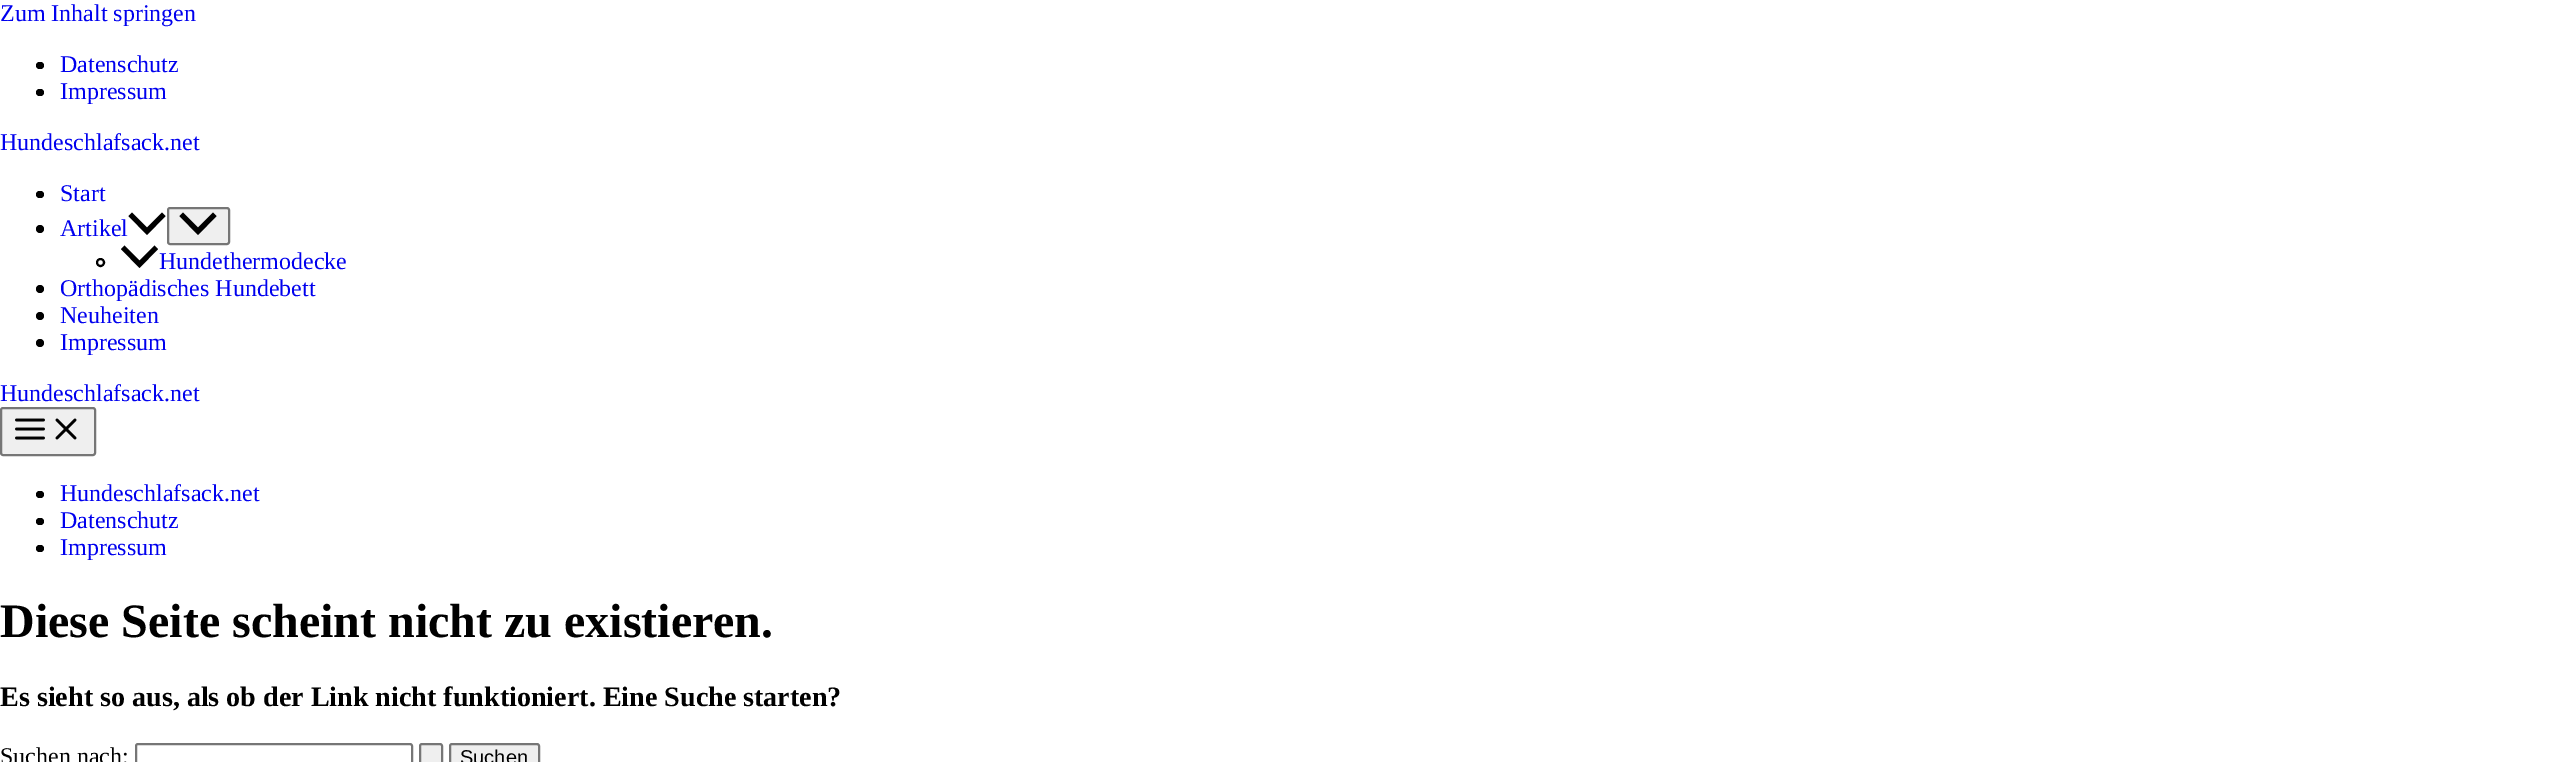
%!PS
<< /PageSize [2550 762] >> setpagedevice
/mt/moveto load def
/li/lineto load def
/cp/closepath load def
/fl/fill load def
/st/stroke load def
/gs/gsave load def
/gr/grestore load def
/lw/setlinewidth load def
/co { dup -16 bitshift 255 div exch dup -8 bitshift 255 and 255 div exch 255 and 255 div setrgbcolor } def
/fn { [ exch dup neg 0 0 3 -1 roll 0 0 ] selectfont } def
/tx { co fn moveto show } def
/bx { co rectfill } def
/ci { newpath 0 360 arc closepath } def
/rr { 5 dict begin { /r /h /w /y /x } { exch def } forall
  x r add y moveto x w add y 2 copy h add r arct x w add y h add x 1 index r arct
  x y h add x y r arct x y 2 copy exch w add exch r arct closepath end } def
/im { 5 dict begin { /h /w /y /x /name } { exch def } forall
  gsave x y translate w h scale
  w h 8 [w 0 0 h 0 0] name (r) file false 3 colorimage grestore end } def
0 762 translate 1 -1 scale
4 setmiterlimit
0 0 2550 762 16#FFFFFF bx
16#000000 co
36 62 8 7 3.5 rr fl
36 89 8 7 3.5 rr fl
36 191 8 7 3.5 rr fl
40 229 4 ci fl
128.5 216 mt 147 235 li 165.5 216 li 162 212.5 li 147 227.5 li 132 212.5 li cp fl
16#EFEFEF co
168 208 61 36 2 rr gs fl gr
16#767676 co
2 lw
st
16#000000 co
179.5 216 mt 198 235 li 216.5 216 li 213 212.5 li 198 227.5 li 183 212.5 li cp fl
100.5 262.5 3.5 ci st
121 249 mt 139.5 268 li 158 249 li 154.5 245.5 li 139.5 260.5 li 124.5 245.5 li cp fl
40 289 4 ci fl
40 316 4 ci fl
40 343 4 ci fl
16#EFEFEF co
1 408 94 47 2 rr gs fl gr
16#767676 co
st
(media/1.raw) 15 418 30 22 im
(media/2.raw) 55 418 22 22 im
16#000000 co
36 491 8 7 3.5 rr fl
36 518 8 7 3.5 rr fl
36 545 8 7 3.5 rr fl
16#767676 co
136 744 276 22 2 rr st
16#EFEFEF co
420 744 22 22 2 rr gs fl gr
16#767676 co
st
16#EFEFEF co
450 744 89 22 2 rr gs fl gr
16#767676 co
st
(Zum Inhalt springen) 0 21 /LiberationSerif-Regular 24 16#0000EE tx
(Datenschutz) 60 72 /LiberationSerif-Regular 24 16#0000EE tx
(Impressum) 60 99 /LiberationSerif-Regular 24 16#0000EE tx
(Hundeschlafsack.net) 0 150 /LiberationSerif-Regular 24 16#0000EE tx
(Start) 60 201 /LiberationSerif-Regular 24 16#0000EE tx
(Artikel) 60 236 /LiberationSerif-Regular 24 16#0000EE tx
(Hundethermodecke) 159 269 /LiberationSerif-Regular 24 16#0000EE tx
(Orthopädisches Hundebett) 60 296 /LiberationSerif-Regular 24 16#0000EE tx
(Neuheiten) 60 323 /LiberationSerif-Regular 24 16#0000EE tx
(Impressum) 60 350 /LiberationSerif-Regular 24 16#0000EE tx
(Hundeschlafsack.net) 0 401 /LiberationSerif-Regular 24 16#0000EE tx
(Hundeschlafsack.net) 60 501 /LiberationSerif-Regular 24 16#0000EE tx
(Datenschutz) 60 528 /LiberationSerif-Regular 24 16#0000EE tx
(Impressum) 60 555 /LiberationSerif-Regular 24 16#0000EE tx
(Diese Seite scheint nicht zu existieren.) 0 637 /LiberationSerif-Bold 48 16#000000 tx
(Es sieht so aus, als ob der Link nicht funktioniert. Eine Suche starten?) 0 706 /LiberationSerif-Bold 28.1 16#000000 tx
(Suchen nach:) 0 764 /LiberationSerif-Regular 24 16#000000 tx
(Suchen) 460 764 /LiberationSans-Regular 20 16#000000 tx
showpage
